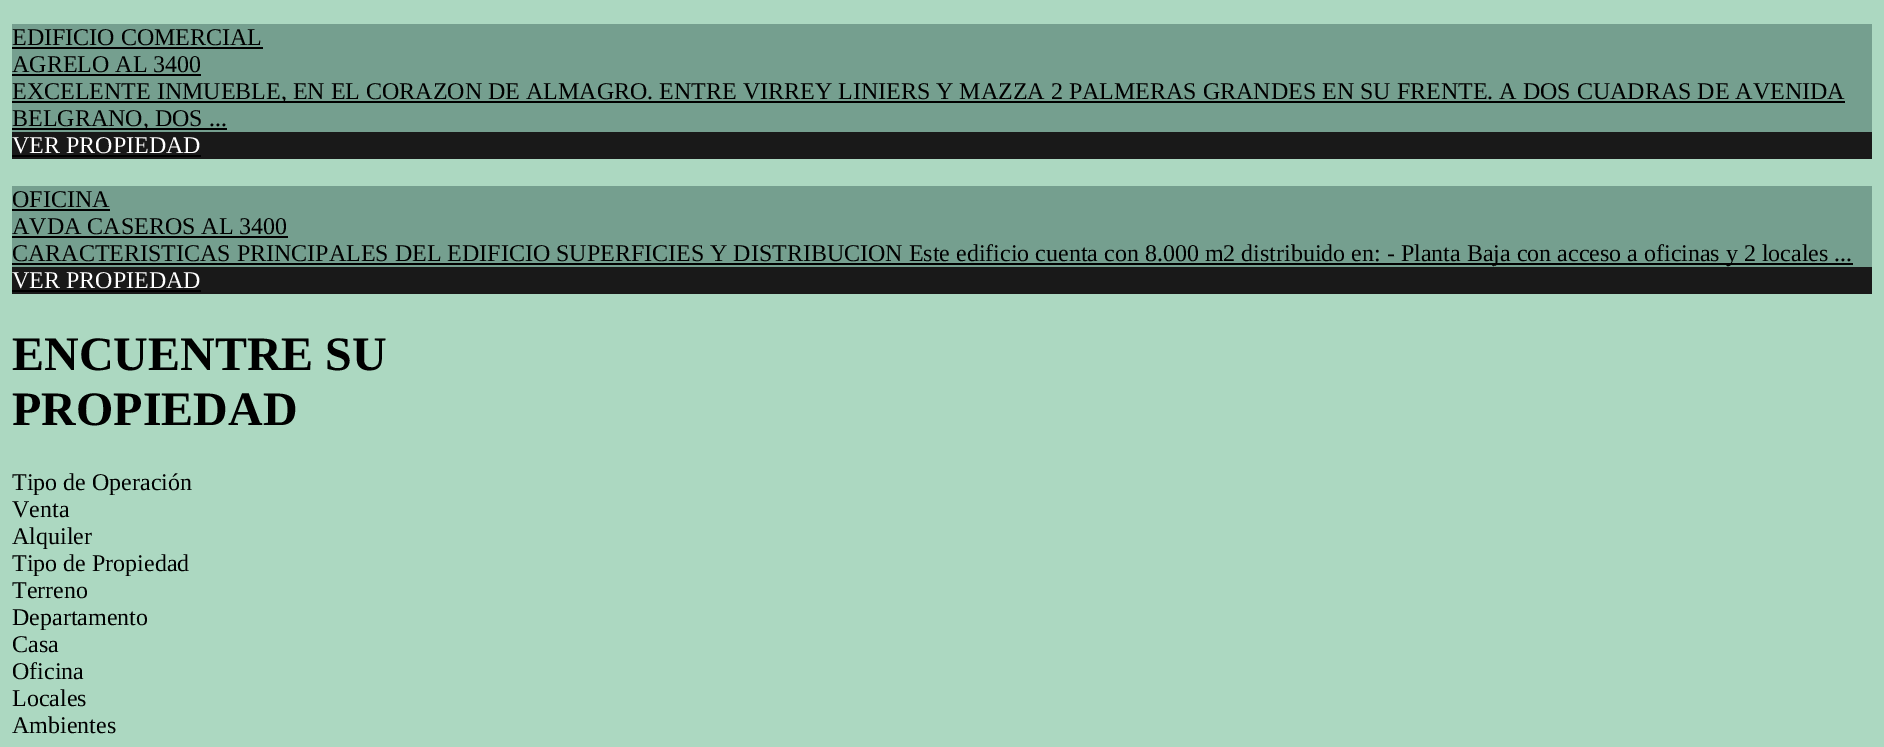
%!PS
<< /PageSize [1884 747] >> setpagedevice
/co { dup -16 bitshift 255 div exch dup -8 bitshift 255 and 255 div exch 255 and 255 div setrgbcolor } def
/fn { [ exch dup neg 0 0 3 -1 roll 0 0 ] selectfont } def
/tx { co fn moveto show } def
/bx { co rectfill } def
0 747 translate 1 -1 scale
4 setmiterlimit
0 0 1884 747 16#ACD8C1 bx
12 24 1860 108 16#759F8F bx
12 47 251 2 16#000000 bx
12 74 189 2 16#000000 bx
12 101 1833 2 16#000000 bx
12 128 215 2 16#000000 bx
12 132 1860 27 16#191919 bx
12 155 189 2 16#000000 bx
12 186 1860 81 16#759F8F bx
12 209 98 2 16#000000 bx
12 236 276 2 16#000000 bx
12 263 1841 2 16#000000 bx
12 267 1860 27 16#191919 bx
12 290 189 2 16#000000 bx
(EDIFICIO COMERCIAL) 12 45 /LiberationSerif-Regular 24 16#000000 tx
(AGRELO AL 3400) 12 72 /LiberationSerif-Regular 24 16#000000 tx
(EXCELENTE INMUEBLE, EN EL CORAZON DE ALMAGRO. ENTRE VIRREY LINIERS Y MAZZA 2 PALMERAS GRANDES EN SU FRENTE. A DOS CUADRAS DE AVENIDA) 12 99 /LiberationSerif-Regular 24 16#000000 tx
(BELGRANO, DOS ...) 12 126 /LiberationSerif-Regular 24 16#000000 tx
(VER PROPIEDAD) 12 153 /LiberationSerif-Regular 24 16#FFFFFF tx
(OFICINA) 12 207 /LiberationSerif-Regular 24 16#000000 tx
(AVDA CASEROS AL 3400) 12 234 /LiberationSerif-Regular 24 16#000000 tx
(CARACTERISTICAS PRINCIPALES DEL EDIFICIO SUPERFICIES Y DISTRIBUCION Este edificio cuenta con 8.000 m2 distribuido en: - Planta Baja con acceso a oficinas y 2 locales ...) 12 261 /LiberationSerif-Regular 24 16#000000 tx
(VER PROPIEDAD) 12 288 /LiberationSerif-Regular 24 16#FFFFFF tx
(ENCUENTRE SU) 12 370 /LiberationSerif-Bold 48 16#000000 tx
(PROPIEDAD) 12 425 /LiberationSerif-Bold 48 16#000000 tx
(Tipo de Operación) 12 490 /LiberationSerif-Regular 24 16#000000 tx
(Venta) 12 517 /LiberationSerif-Regular 24 16#000000 tx
(Alquiler) 12 544 /LiberationSerif-Regular 24 16#000000 tx
(Tipo de Propiedad) 12 571 /LiberationSerif-Regular 24 16#000000 tx
(Terreno) 12 598 /LiberationSerif-Regular 24 16#000000 tx
(Departamento) 12 625 /LiberationSerif-Regular 24 16#000000 tx
(Casa) 12 652 /LiberationSerif-Regular 24 16#000000 tx
(Oficina) 12 679 /LiberationSerif-Regular 24 16#000000 tx
(Locales) 12 706 /LiberationSerif-Regular 24 16#000000 tx
(Ambientes) 12 733 /LiberationSerif-Regular 24 16#000000 tx
showpage
